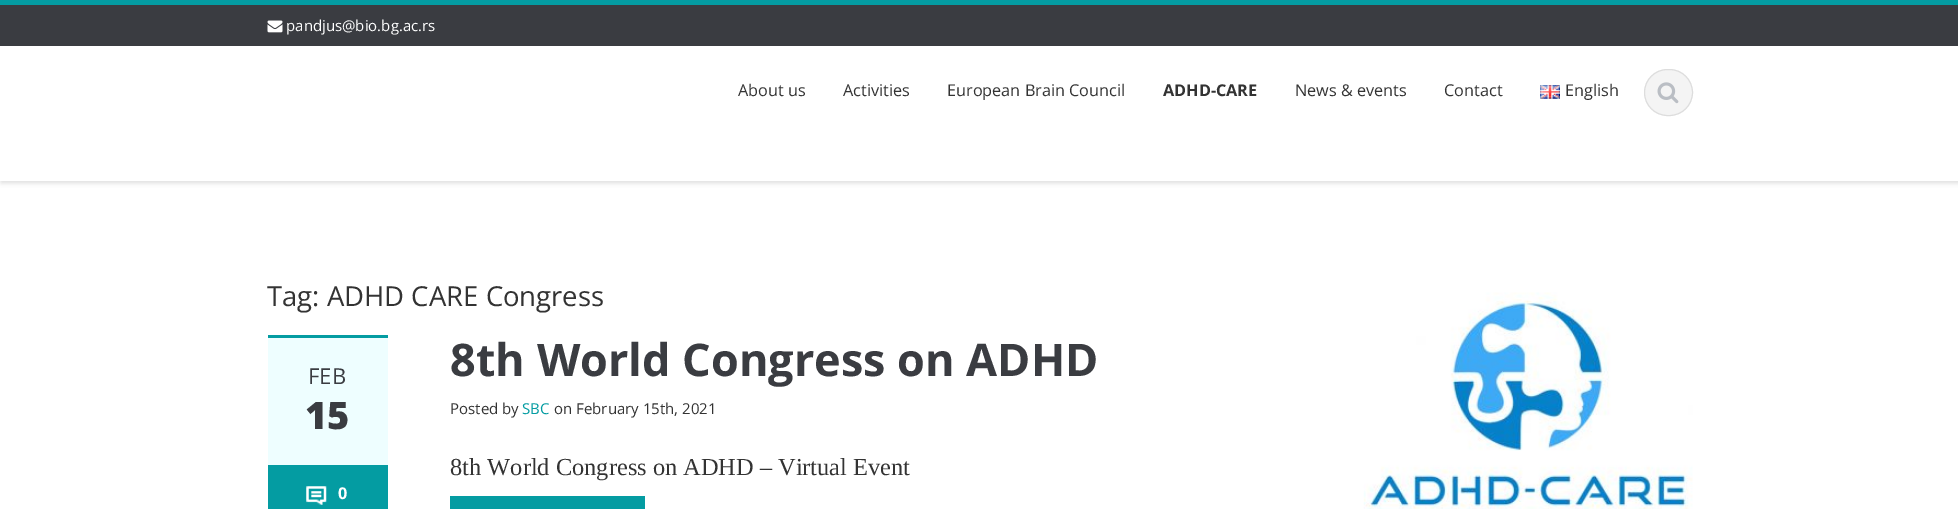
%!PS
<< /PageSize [1958 509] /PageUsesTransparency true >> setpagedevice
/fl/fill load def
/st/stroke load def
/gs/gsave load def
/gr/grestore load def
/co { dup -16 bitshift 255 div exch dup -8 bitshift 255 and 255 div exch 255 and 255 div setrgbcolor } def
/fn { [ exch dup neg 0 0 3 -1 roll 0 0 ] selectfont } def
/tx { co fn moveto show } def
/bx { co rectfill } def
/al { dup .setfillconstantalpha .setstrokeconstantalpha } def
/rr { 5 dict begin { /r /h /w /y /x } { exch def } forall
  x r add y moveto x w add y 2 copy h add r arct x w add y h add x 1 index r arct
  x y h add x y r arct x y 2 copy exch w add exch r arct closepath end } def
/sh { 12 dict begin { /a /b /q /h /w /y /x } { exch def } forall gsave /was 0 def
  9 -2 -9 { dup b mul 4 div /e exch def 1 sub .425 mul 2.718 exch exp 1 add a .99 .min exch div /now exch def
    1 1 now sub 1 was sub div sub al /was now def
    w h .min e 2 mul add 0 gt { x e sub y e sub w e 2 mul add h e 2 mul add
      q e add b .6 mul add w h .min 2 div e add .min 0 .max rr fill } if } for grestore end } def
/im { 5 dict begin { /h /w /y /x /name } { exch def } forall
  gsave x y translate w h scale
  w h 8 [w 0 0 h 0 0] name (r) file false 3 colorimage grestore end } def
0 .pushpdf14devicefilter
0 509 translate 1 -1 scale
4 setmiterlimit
0 0 1958 509 16#FFFFFF bx
gs
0 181 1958 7 rectclip
16#DDDDDD co
1 1 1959 182 0 2.5 1 sh
gr
0 5 1958 41 16#3A3C41 bx
0 0 1958 5 16#049CA2 bx
(media/1.raw) 267 20 16 13 im
(media/2.raw) 1540 85 20 14 im
16#F4F4F4 co
1644.5 69.5 48 46 23 rr gs fl gr
16#DDDDDD co
st
(media/3.raw) 1657 82 22 22 im
268 338 120 127 16#EEFEFF bx
268 335 120 3 16#049CA2 bx
268 465 120 44 16#049CA2 bx
(media/4.raw) 306 486 21 19 im
450 496 195 13 16#049CA2 bx
(media/5.raw) 1363 292 330 217 im
(pandjus@bio.bg.ac.rs) 286 31 /OpenSans-Regular 15 16#FFFFFF tx
(About us) 738 96 /OpenSans-Regular 16.25 16#333333 tx
(Activities) 843 96 /OpenSans-Regular 16.25 16#333333 tx
(European Brain Council) 947 96 /OpenSans-Regular 16.25 16#333333 tx
(ADHD-CARE) 1163 96 /OpenSans-Bold 16.25 16#333333 tx
(News & events) 1295 96 /OpenSans-Regular 16.25 16#333333 tx
(Contact) 1444 96 /OpenSans-Regular 16.25 16#333333 tx
(English) 1565 96 /OpenSans-Regular 16.25 16#333333 tx
(Tag: ADHD CARE Congress) 267 306 /OpenSans-Regular 27.5 16#333333 tx
(FEB) 308 384 /OpenSans-Regular 22 16#3A3C41 tx
(15) 305 429 /OpenSans-ExtraBold 38 16#3A3C41 tx
(0) 338 499 /OpenSans-Bold 16.25 16#FFFFFF tx
(8th World Congress on ADHD) 450 376 /OpenSans-Bold 45 16#3A3C41 tx
(Posted by) 450 414 /OpenSans-Regular 15 16#333333 tx
(SBC) 522 414 /OpenSans-Regular 15 16#049CA2 tx
(on February 15th, 2021) 554 414 /OpenSans-Regular 15 16#333333 tx
(8th World Congress on ADHD – Virtual Event) 450 475 /LiberationSerif-Regular 24.4 16#333333 tx
.poppdf14devicefilter showpage
